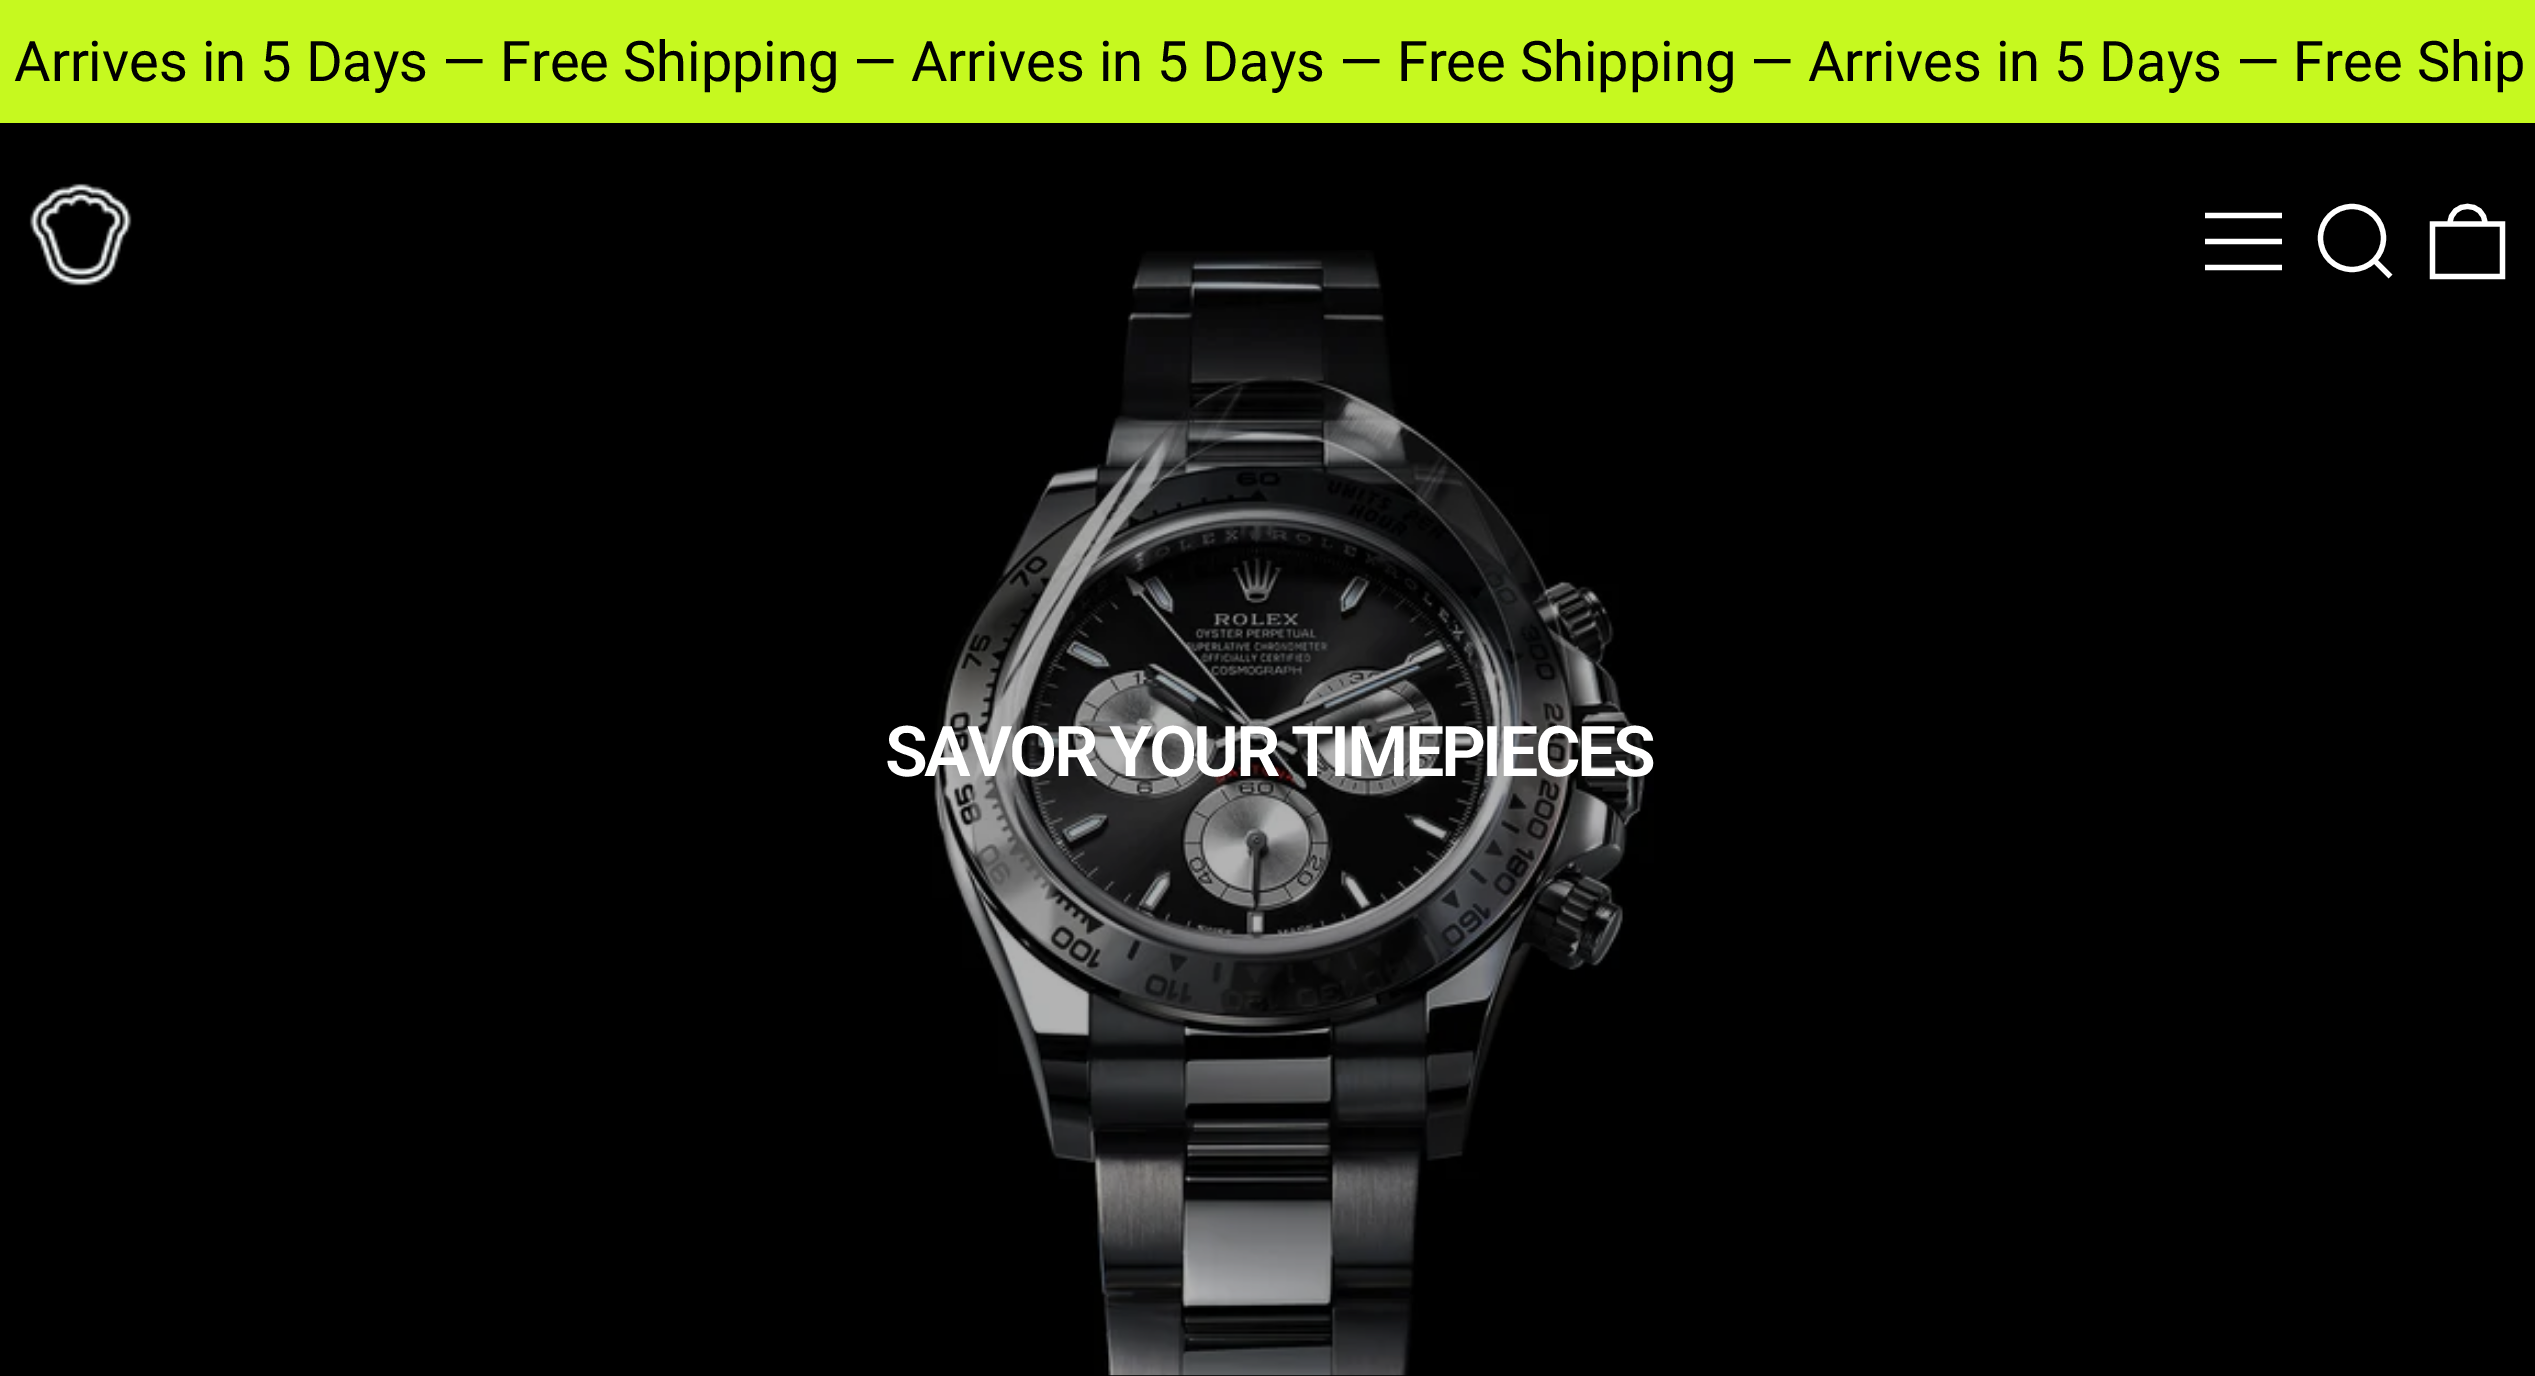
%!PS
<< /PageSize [2535 1376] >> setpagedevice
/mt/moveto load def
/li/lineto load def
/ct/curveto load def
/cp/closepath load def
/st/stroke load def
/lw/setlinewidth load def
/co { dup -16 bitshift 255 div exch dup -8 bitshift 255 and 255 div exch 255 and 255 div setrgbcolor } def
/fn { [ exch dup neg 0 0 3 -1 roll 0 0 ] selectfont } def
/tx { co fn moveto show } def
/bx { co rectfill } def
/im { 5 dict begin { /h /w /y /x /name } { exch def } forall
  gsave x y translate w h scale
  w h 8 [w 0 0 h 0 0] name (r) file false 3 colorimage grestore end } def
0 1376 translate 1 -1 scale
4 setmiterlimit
0 0 2535 1376 16#C6F91F bx
0 123 2535 1253 16#000000 bx
(media/1.raw) 29 183 103 103 im
16#FFFFFF co
5.2 lw
2205 215.5 mt 2282 215.5 li 2205 241.5 mt 2282 241.5 li 2205 267.5 mt 2282 267.5 li st
2320.5 238 mt 2320.5 255.5 2334.5 269.5 2352 269.5 ct 2369.5 269.5 2383.5 255.5 2383.5 238 ct 2383.5 220.5 2369.5 206.5 2352 206.5 ct 2334.5 206.5 2320.5 220.5 2320.5 238 ct cp 2374.5 260.5 mt 2390.5 276.5 li st
2432.5 224 mt 2502.5 224 li 2502.5 276.5 li 2432.5 276.5 li cp 2485 224 mt 2485 200.5 2450 200.5 2450 224 ct st
(media/2.raw) 932 250 722 1126 im
(Arrives in 5 Days — Free Shipping — Arrives in 5 Days — Free Shipping — Arrives in 5 Days — Free Ship) 14 81 /Roboto-Regular 56 16#000000 tx
/Roboto-SemiBold 70 fn
16#FFFFFF co
885 776 mt -3.5 0 (SAVOR YOUR TIMEPIECES) ashow
showpage
